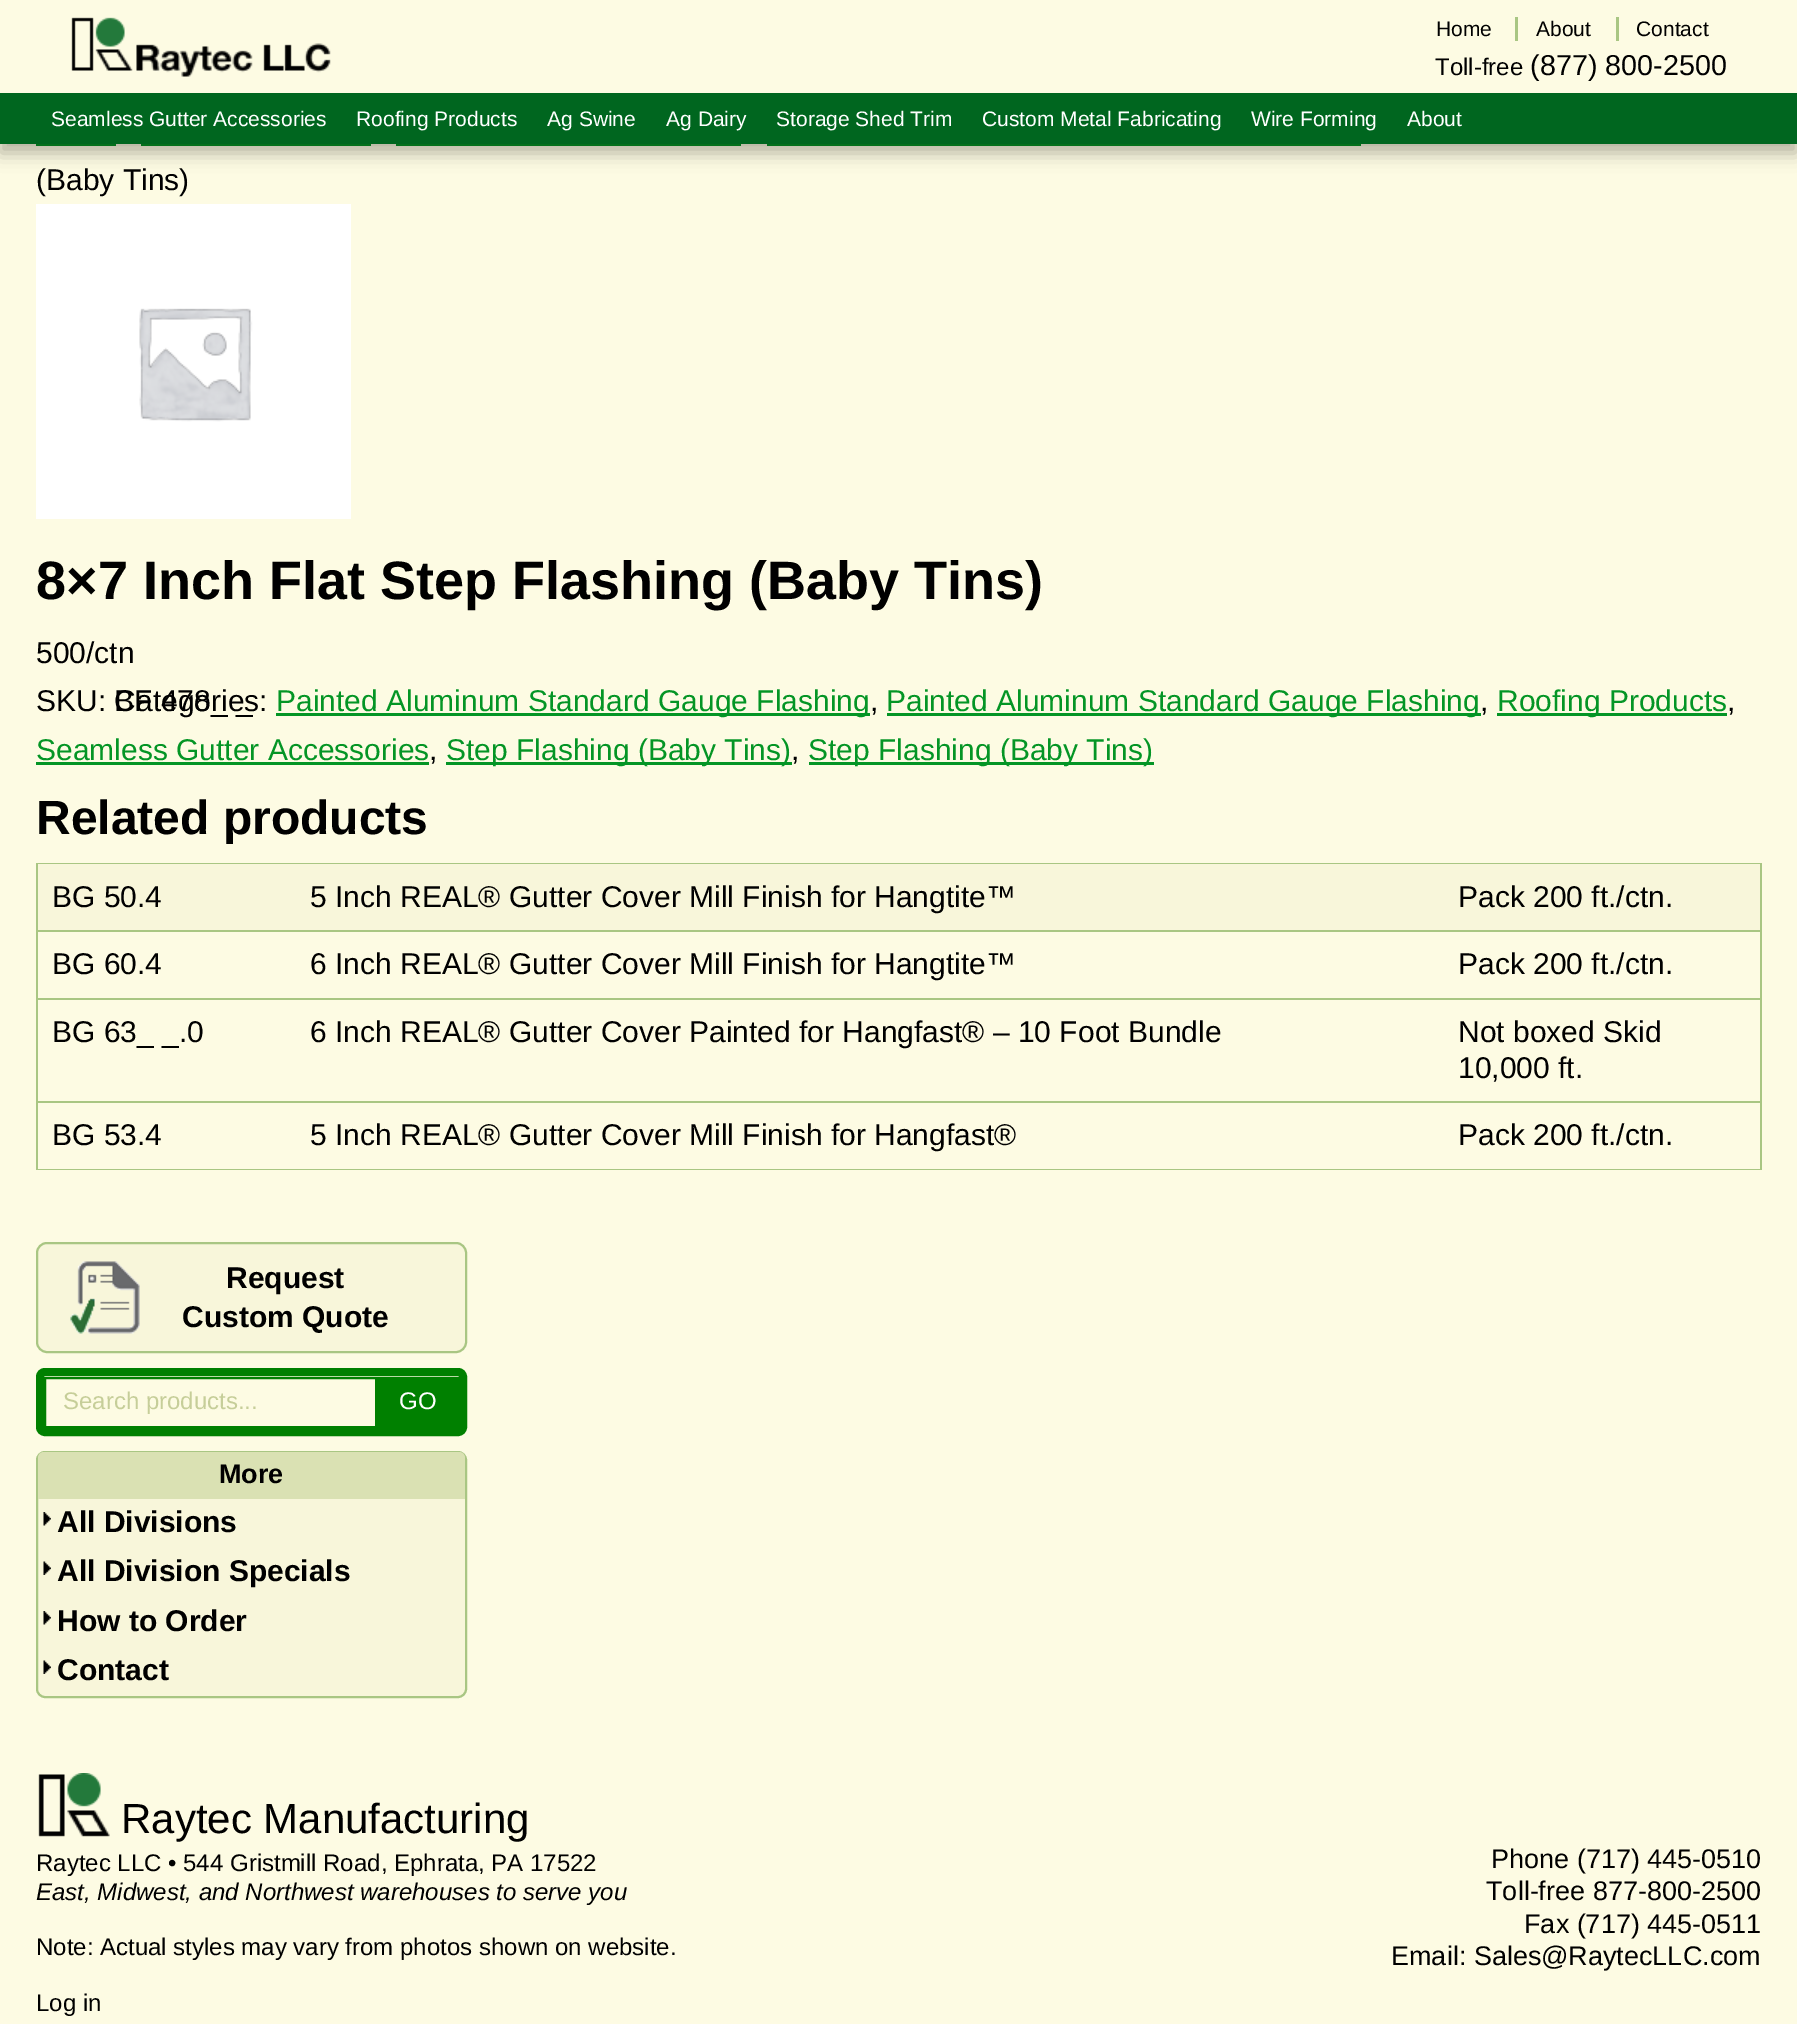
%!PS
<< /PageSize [1797 2024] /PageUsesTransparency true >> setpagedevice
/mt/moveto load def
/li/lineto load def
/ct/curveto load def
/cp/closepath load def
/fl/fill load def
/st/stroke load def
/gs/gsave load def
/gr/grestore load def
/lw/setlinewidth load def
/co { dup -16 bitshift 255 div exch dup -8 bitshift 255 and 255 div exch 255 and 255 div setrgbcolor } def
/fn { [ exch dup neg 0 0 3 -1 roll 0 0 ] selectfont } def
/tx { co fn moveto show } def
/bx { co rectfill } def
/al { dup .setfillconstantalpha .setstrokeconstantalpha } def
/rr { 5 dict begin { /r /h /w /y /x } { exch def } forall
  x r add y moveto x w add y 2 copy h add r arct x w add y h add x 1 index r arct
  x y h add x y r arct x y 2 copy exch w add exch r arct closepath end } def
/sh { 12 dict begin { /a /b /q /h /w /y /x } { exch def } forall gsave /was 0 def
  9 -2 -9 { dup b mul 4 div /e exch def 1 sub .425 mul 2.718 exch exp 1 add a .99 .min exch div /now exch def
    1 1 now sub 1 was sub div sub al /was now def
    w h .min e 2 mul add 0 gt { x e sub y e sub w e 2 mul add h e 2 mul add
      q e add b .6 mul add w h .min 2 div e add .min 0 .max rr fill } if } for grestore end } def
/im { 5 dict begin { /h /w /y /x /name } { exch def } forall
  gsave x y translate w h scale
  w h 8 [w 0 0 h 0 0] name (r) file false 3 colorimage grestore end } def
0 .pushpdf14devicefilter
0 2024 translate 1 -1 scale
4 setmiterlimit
0 0 1797 2024 16#FDFBE3 bx
36 144 80 2 16#049525 bx
141 144 230 2 16#049525 bx
396 144 345 2 16#049525 bx
767 144 594 2 16#049525 bx
16#000000 co
0 9 1797 144 0 9 .3 sh
0 0 1797 93 16#FDFBE3 bx
(media/1.raw) 71 17 260 60 im
1515 17 3 24 16#A9C683 bx
1616 17 3 24 16#A9C683 bx
0 93 1797 51 16#00661F bx
(media/2.raw) 36 204 315 315 im
276 713 594 3 16#049525 bx
887 713 594 3 16#049525 bx
1497 713 230 3 16#049525 bx
36 762 393 3 16#049525 bx
446 762 346 3 16#049525 bx
809 762 345 3 16#049525 bx
36 863 1725 1 16#A9C683 bx
1760 863 2 307 16#A9C683 bx
36 863 2 307 16#A9C683 bx
38 864 1722 66 16#F8F6DA bx
38 930 1722 2 16#A9C683 bx
38 998 1722 2 16#A9C683 bx
38 1101 1722 2 16#A9C683 bx
38 1169 1722 1 16#A9C683 bx
16#F8F6DA co
36 1242 431 111 11 rr fl
(media/3.raw) 70 1261 70 73 im
16#A9C683 co
2 lw
37 1243 429 109 10 rr st
16#008000 co
8 lw
40 1372 423 60 5 rr st
2 lw
45 1378 331 49 rectstroke
377 1377 82 51 16#008000 bx
16#F8F6DA co
37 1452 429 245 8 rr gs fl gr
16#A9C683 co
st
16#DAE1B3 co
44 1452 mt 459 1452 li 462.5 1452 465 1454.5 465 1458 ct 465 1499 li 38 1499 li 38 1458 li 38 1454.5 40.5 1452 44 1452 ct cp fl
(media/4.raw) 43 1512 8 14 im
(media/5.raw) 43 1561 8 14 im
(media/4.raw) 43 1611 8 14 im
(media/5.raw) 43 1660 8 14 im
(media/6.raw) 38 1773 72 64 im
(Home) 1436 36 /LiberationSans-Regular 21 16#000000 tx
(About) 1536 36 /LiberationSans-Regular 21 16#000000 tx
(Contact) 1636 36 /LiberationSans-Regular 21 16#000000 tx
(Toll-free) 1435 75 /LiberationSans-Regular 24 16#000000 tx
(\(877\) 800-2500) 1530 75 /LiberationSans-Regular 28.75 16#000000 tx
(Seamless Gutter Accessories) 51 126 /LiberationSans-Regular 21 16#FFFFFF tx
(Roofing Products) 356 126 /LiberationSans-Regular 21 16#FFFFFF tx
(Ag Swine) 547 126 /LiberationSans-Regular 21 16#FFFFFF tx
(Ag Dairy) 666 126 /LiberationSans-Regular 21 16#FFFFFF tx
(Storage Shed Trim) 776 126 /LiberationSans-Regular 21 16#FFFFFF tx
(Custom Metal Fabricating) 982 126 /LiberationSans-Regular 21 16#FFFFFF tx
(Wire Forming) 1251 126 /LiberationSans-Regular 21 16#FFFFFF tx
(About) 1407 126 /LiberationSans-Regular 21 16#FFFFFF tx
(\(Baby Tins\)) 36 190 /LiberationSans-Regular 30 16#000000 tx
(8×7 Inch Flat Step Flashing \(Baby Tins\)) 36 599 /LiberationSans-Bold 54 16#000000 tx
(500/ctn) 36 663 /LiberationSans-Regular 30 16#000000 tx
(SKU: Categories:) 36 711 /LiberationSans-Regular 30 16#000000 tx
(BF 478_ _) 114 711 /LiberationSans-Regular 30 16#000000 tx
(Painted Aluminum Standard Gauge Flashing) 276 711 /LiberationSans-Regular 30 16#049525 tx
(,) 870 711 /LiberationSans-Regular 30 16#000000 tx
(Painted Aluminum Standard Gauge Flashing) 886 711 /LiberationSans-Regular 30 16#049525 tx
(,) 1480 711 /LiberationSans-Regular 30 16#000000 tx
(Roofing Products) 1497 711 /LiberationSans-Regular 30 16#049525 tx
(,) 1727 711 /LiberationSans-Regular 30 16#000000 tx
(Seamless Gutter Accessories) 36 760 /LiberationSans-Regular 30 16#049525 tx
(,) 429 760 /LiberationSans-Regular 30 16#000000 tx
(Step Flashing \(Baby Tins\)) 446 760 /LiberationSans-Regular 30 16#049525 tx
(,) 791 760 /LiberationSans-Regular 30 16#000000 tx
(Step Flashing \(Baby Tins\)) 808 760 /LiberationSans-Regular 30 16#049525 tx
(Related products) 36 834 /LiberationSans-Bold 48 16#000000 tx
(BG 50.4) 52 907 /LiberationSans-Regular 30 16#000000 tx
(5 Inch REAL® Gutter Cover Mill Finish for Hangtite™) 310 907 /LiberationSans-Regular 30 16#000000 tx
(Pack 200 ft./ctn.) 1458 907 /LiberationSans-Regular 30 16#000000 tx
(BG 60.4) 52 974 /LiberationSans-Regular 30 16#000000 tx
(6 Inch REAL® Gutter Cover Mill Finish for Hangtite™) 310 974 /LiberationSans-Regular 30 16#000000 tx
(Pack 200 ft./ctn.) 1458 974 /LiberationSans-Regular 30 16#000000 tx
(BG 63_ _.0) 52 1042 /LiberationSans-Regular 30 16#000000 tx
(6 Inch REAL® Gutter Cover Painted for Hangfast® – 10 Foot Bundle) 310 1042 /LiberationSans-Regular 30 16#000000 tx
(Not boxed Skid) 1458 1042 /LiberationSans-Regular 30 16#000000 tx
(10,000 ft.) 1458 1078 /LiberationSans-Regular 30 16#000000 tx
(BG 53.4) 52 1145 /LiberationSans-Regular 30 16#000000 tx
(5 Inch REAL® Gutter Cover Mill Finish for Hangfast®) 310 1145 /LiberationSans-Regular 30 16#000000 tx
(Pack 200 ft./ctn.) 1458 1145 /LiberationSans-Regular 30 16#000000 tx
(Request) 226 1288 /LiberationSans-Bold 30 16#000000 tx
(Custom Quote) 182 1327 /LiberationSans-Bold 30 16#000000 tx
(Search products...) 63 1409 /LiberationSans-Regular 24 16#C6CE99 tx
(GO) 399 1409 /LiberationSans-Regular 24 16#FFFFFF tx
(More) 219 1483 /LiberationSans-Bold 27 16#000000 tx
(All Divisions) 57 1532 /LiberationSans-Bold 30 16#000000 tx
(All Division Specials) 57 1581 /LiberationSans-Bold 30 16#000000 tx
(How to Order) 57 1631 /LiberationSans-Bold 30 16#000000 tx
(Contact) 57 1680 /LiberationSans-Bold 30 16#000000 tx
(Raytec Manufacturing) 121 1833 /LiberationSans-Regular 42 16#000000 tx
(Raytec LLC • 544 Gristmill Road, Ephrata, PA 17522) 36 1871 /LiberationSans-Regular 24 16#000000 tx
(East, Midwest, and Northwest warehouses to serve you) 36 1900 /LiberationSans-Italic 24 16#000000 tx
(Note: Actual styles may vary from photos shown on website.) 36 1955 /LiberationSans-Regular 24 16#000000 tx
(Log in) 36 2011 /LiberationSans-Regular 24 16#000000 tx
(Phone \(717\) 445-0510) 1491 1868 /LiberationSans-Regular 27 16#000000 tx
(Toll-free 877-800-2500) 1486 1900 /LiberationSans-Regular 27 16#000000 tx
(Fax \(717\) 445-0511) 1524 1933 /LiberationSans-Regular 27 16#000000 tx
(Email: Sales@RaytecLLC.com) 1391 1965 /LiberationSans-Regular 27 16#000000 tx
.poppdf14devicefilter showpage
